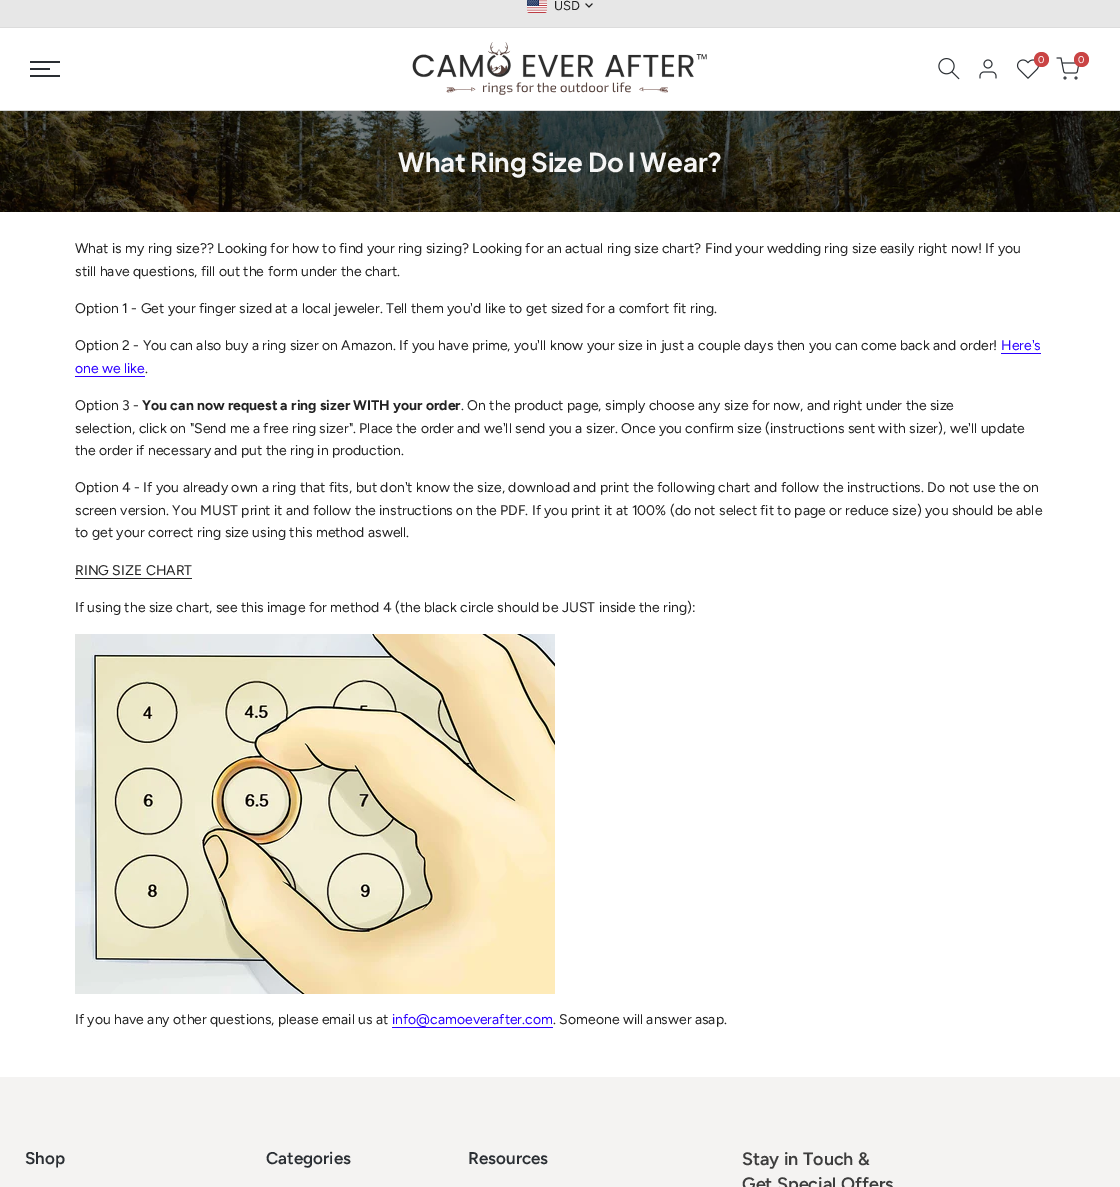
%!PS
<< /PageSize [1120 1187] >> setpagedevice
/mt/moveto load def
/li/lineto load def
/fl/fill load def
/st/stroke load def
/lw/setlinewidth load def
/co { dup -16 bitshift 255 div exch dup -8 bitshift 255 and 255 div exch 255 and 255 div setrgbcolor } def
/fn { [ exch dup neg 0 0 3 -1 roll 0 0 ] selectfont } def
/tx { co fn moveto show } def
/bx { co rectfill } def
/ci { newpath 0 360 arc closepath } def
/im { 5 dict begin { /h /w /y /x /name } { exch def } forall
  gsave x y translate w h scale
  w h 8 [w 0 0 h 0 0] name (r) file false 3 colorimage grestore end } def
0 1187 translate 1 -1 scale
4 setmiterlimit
0 0 1120 1187 16#FFFFFF bx
0 0 1120 27 16#E7E7E7 bx
0 27 1120 1 16#DCDCDC bx
(media/1.raw) 527 0 20 13 im
16#1E1E1E co
.8 lw
2 setlinecap
592 4 mt 589 7 li 586 4 li st
0 110 1120 1 16#D8D8D8 bx
(media/2.raw) 412 42 295 53 im
(media/3.raw) 938 58 22 22 im
(media/4.raw) 979 59 18 20 im
(media/5.raw) 1016 59 23 20 im
16#CA4444 co
1041.5 59.5 7.5 ci fl
(media/6.raw) 1056 57 23 23 im
1081.5 59.5 7.5 ci fl
30 61 30 2 16#2A2E33 bx
30 68 20 2 16#2A2E33 bx
30 75 30 2 16#2A2E33 bx
(media/7.raw) 0 111 1120 101 im
1001 353 40 1 16#2B00FF bx
75 376 70 1 16#2B00FF bx
75 578 117 1 16#262626 bx
(media/8.raw) 75 634 480 360 im
392 1027 161 1 16#2B00FF bx
0 1077 1120 110 16#F4F3F2 bx
(USD) 554 10 /Figtree-Regular 13 16#222222 tx
(0) 1038 63 /Figtree-Regular 10 16#FFFFFF tx
(0) 1078 63 /Figtree-Regular 10 16#FFFFFF tx
(What Ring Size Do I Wear?) 398 172 /PlusJakartaSans-Bold 26 16#F5F5F5 tx
(What is my ring size?? Looking for how to find your ring sizing? Looking for an actual ring size chart? Find your wedding ring size easily right now! If you) 75 253 /Figtree-Regular 14 16#222222 tx
(still have questions, fill out the form under the chart.) 75 276 /Figtree-Regular 14 16#222222 tx
(Option 1 - Get your finger sized at a local jeweler. Tell them you'd like to get sized for a comfort fit ring.) 75 313 /Figtree-Regular 14 16#222222 tx
(Option 2 - You can also buy a ring sizer on Amazon. If you have prime, you'll know your size in just a couple days then you can come back and order!) 75 350 /Figtree-Regular 14 16#222222 tx
(Here's) 1001 350 /Figtree-Regular 14 16#2B00FF tx
(one we like) 75 373 /Figtree-Regular 14 16#2B00FF tx
(.) 145 373 /Figtree-Regular 14 16#222222 tx
(Option 3 -) 75 410 /Figtree-Regular 14 16#222222 tx
(You can now request a ring sizer WITH your order) 142 410 /Figtree-Bold 14 16#222222 tx
(. On the product page, simply choose any size for now, and right under the size) 461 410 /Figtree-Regular 14 16#222222 tx
(selection, click on "Send me a free ring sizer". Place the order and we'll send you a sizer. Once you confirm size \(instructions sent with sizer\), we'll update) 75 433 /Figtree-Regular 14 16#222222 tx
(the order if necessary and put the ring in production.) 75 455 /Figtree-Regular 14 16#222222 tx
(Option 4 - If you already own a ring that fits, but don't know the size, download and print the following chart and follow the instructions. Do not use the on) 75 492 /Figtree-Regular 14 16#222222 tx
(screen version. You MUST print it and follow the instructions on the PDF. If you print it at 100% \(do not select fit to page or reduce size\) you should be able) 75 515 /Figtree-Regular 14 16#222222 tx
(to get your correct ring size using this method aswell.) 75 537 /Figtree-Regular 14 16#222222 tx
(RING SIZE CHART) 75 575 /Figtree-Regular 14 16#222222 tx
(If using the size chart, see this image for method 4 \(the black circle should be JUST inside the ring\):) 75 612 /Figtree-Regular 14 16#222222 tx
(If you have any other questions, please email us at) 75 1024 /Figtree-Regular 14 16#222222 tx
(info@camoeverafter.com) 392 1024 /Figtree-Regular 14 16#2B00FF tx
(. Someone will answer asap.) 553 1024 /Figtree-Regular 14 16#222222 tx
(Shop) 25 1164 /Figtree-SemiBold 17 16#2A2E33 tx
(Categories) 266 1164 /Figtree-SemiBold 17 16#2A2E33 tx
(Resources) 468 1164 /Figtree-SemiBold 17 16#2A2E33 tx
(Stay in Touch &) 742 1165 /Figtree-SemiBold 18 16#3D3D3D tx
(Get Special Offers) 742 1190 /Figtree-SemiBold 18 16#3D3D3D tx
showpage
